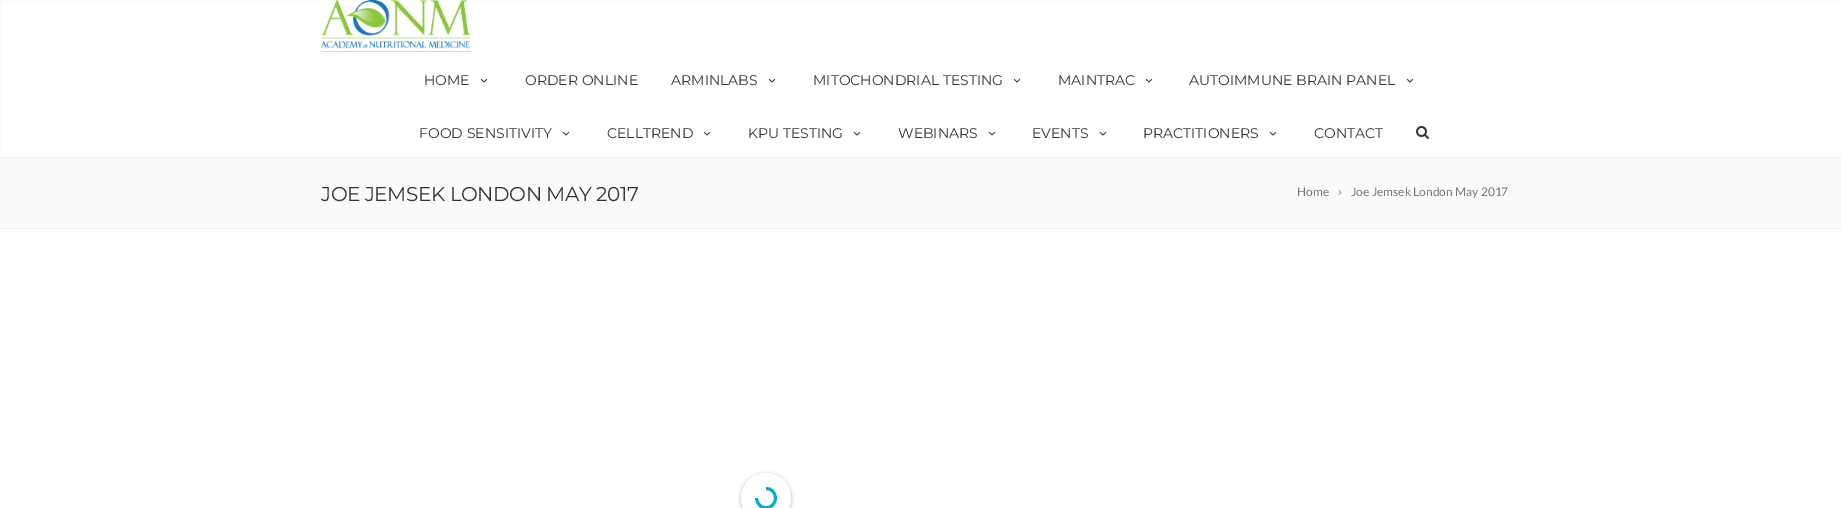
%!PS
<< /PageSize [1841 508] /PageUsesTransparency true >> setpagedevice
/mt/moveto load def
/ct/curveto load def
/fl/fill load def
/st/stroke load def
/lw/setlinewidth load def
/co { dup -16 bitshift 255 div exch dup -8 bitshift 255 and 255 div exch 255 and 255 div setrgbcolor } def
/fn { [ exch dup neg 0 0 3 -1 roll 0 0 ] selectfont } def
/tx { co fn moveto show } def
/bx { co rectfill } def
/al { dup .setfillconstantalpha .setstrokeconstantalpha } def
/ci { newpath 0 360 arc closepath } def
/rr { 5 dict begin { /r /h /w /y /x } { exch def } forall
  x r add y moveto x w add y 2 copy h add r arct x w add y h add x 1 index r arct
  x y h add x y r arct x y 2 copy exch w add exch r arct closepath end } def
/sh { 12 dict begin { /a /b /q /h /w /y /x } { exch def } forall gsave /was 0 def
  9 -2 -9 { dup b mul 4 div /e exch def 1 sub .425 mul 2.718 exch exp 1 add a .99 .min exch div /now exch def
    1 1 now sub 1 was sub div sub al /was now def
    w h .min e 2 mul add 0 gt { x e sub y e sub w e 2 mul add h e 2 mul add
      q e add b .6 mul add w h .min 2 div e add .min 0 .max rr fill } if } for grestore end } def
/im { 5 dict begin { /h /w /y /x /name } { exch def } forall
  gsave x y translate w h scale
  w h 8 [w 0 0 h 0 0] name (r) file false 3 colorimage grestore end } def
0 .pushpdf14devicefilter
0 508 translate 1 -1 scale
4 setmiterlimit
0 0 1841 508 16#FFFFFF bx
16#EEEEEE co
-.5 -.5 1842 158 rectstroke
(media/1.raw) 321 0 150 52 im
(media/2.raw) 480 78 8 5 im
(media/2.raw) 768 78 8 5 im
(media/2.raw) 1013 78 8 5 im
(media/2.raw) 1145 78 8 5 im
(media/2.raw) 1406 78 8 5 im
(media/2.raw) 562 131 8 5 im
(media/2.raw) 703 131 8 5 im
(media/2.raw) 853 131 8 5 im
(media/2.raw) 988 131 8 5 im
(media/2.raw) 1099 131 8 5 im
(media/2.raw) 1269 131 8 5 im
(media/3.raw) 1416 126 13 13 im
0 158 1841 70 16#FAFAFA bx
0 228 1841 1 16#EEEEEE bx
(media/4.raw) 1338 190 4 5 im
16#000000 co
741 474 50 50 25 2 .3 sh
16#FFFFFF co
766 498 25 ci fl
16#07ABCC co
2.9 lw
766 488.5 mt 777.5 488.5 779 505 768 507.5 ct 765.5 508 763 507.5 760.5 506 ct 758 504 756.5 501 756.5 498 ct st
(HOME) 424 85 /Montserrat-Regular 14 16#333333 tx
(ORDER ONLINE) 525 85 /Montserrat-Regular 14 16#333333 tx
(ARMINLABS) 671 85 /Montserrat-Regular 14 16#333333 tx
(MITOCHONDRIAL TESTING) 813 85 /Montserrat-Regular 14 16#333333 tx
(MAINTRAC) 1058 85 /Montserrat-Regular 14 16#333333 tx
(AUTOIMMUNE BRAIN PANEL) 1189 85 /Montserrat-Regular 14 16#333333 tx
(FOOD SENSITIVITY) 419 138 /Montserrat-Regular 14 16#333333 tx
(CELLTREND) 607 138 /Montserrat-Regular 14 16#333333 tx
(KPU TESTING) 748 138 /Montserrat-Regular 14 16#333333 tx
(WEBINARS) 898 138 /Montserrat-Regular 14 16#333333 tx
(EVENTS) 1032 138 /Montserrat-Regular 14 16#333333 tx
(PRACTITIONERS) 1143 138 /Montserrat-Regular 14 16#333333 tx
(CONTACT) 1314 138 /Montserrat-Regular 14 16#333333 tx
/Montserrat-Regular 20 fn
321 201 mt -.4 0 (JOE JEMSEK LONDON MAY 2017) ashow
(Home) 1297 196 /Lato-Regular 12 16#777777 tx
(Joe Jemsek London May 2017) 1351 196 /Lato-Regular 12 16#777777 tx
.poppdf14devicefilter showpage
